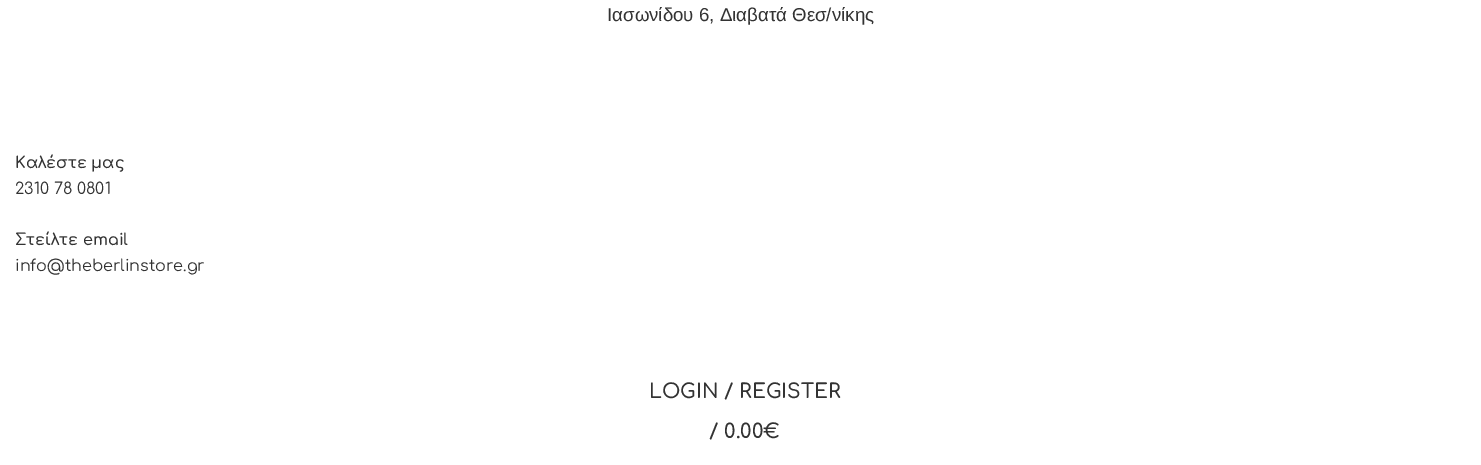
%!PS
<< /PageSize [1481 465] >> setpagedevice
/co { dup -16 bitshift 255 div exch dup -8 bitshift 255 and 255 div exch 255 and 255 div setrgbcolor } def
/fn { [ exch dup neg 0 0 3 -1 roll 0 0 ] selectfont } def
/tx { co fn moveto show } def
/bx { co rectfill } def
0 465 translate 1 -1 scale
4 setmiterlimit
0 0 1481 465 16#FFFFFF bx
(Ιασωνίδου 6, Διαβατά Θεσ/νίκης) 607 21 /LiberationSans-Regular 18.7 16#333333 tx
(Καλέστε μας) 15 168 /Comfortaa-SemiBold 16 16#333333 tx
(2310 78 0801) 15 194 /Comfortaa-Regular 16 16#333333 tx
(Στείλτε email) 15 245 /Comfortaa-SemiBold 16 16#333333 tx
(info@theberlinstore.gr) 15 271 /Comfortaa-Regular 16 16#333333 tx
(LOGIN / REGISTER) 649 398 /Comfortaa-SemiBold 20 16#333333 tx
(/ 0.00€) 709 438 /Comfortaa-SemiBold 20 16#333333 tx
showpage
